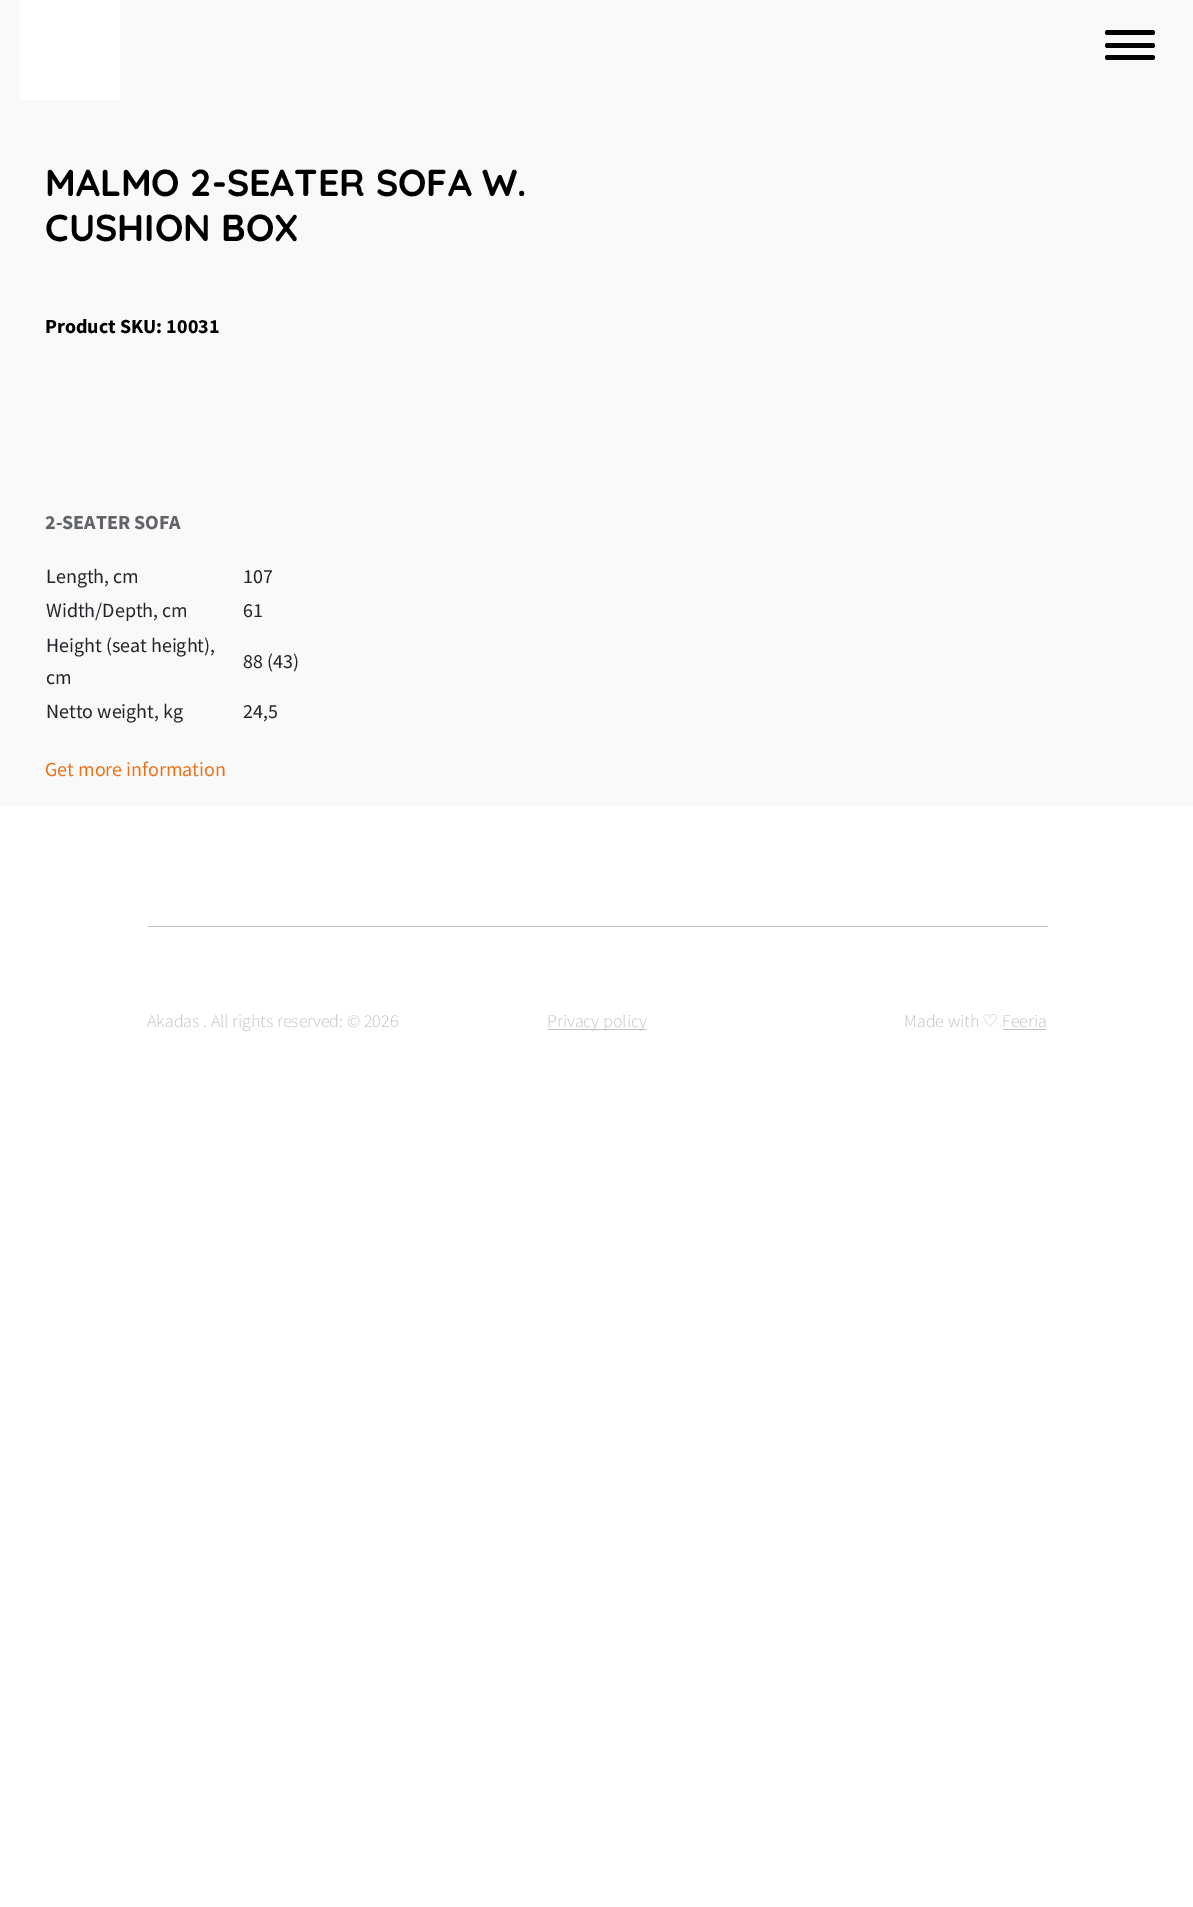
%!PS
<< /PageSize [1193 1907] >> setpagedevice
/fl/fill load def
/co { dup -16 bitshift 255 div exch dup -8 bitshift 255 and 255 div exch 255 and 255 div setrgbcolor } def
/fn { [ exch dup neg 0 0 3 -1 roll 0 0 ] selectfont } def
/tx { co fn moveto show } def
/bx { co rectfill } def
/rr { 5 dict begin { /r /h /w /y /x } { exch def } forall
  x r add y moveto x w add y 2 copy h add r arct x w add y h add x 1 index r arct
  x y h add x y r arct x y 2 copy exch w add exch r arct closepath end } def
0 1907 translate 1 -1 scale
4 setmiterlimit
0 0 1193 1907 16#FFFFFF bx
0 0 1193 806 16#FAF9F9 bx
20 0 100 100 16#FFFFFF bx
16#000000 co
1105 43 50 5 2.5 rr fl
1105 30 50 5 2.5 rr fl
1105 55 50 5 2.5 rr fl
148 926 900 1 16#BDC4C4 bx
548 1029 98 1 16#BDC4C4 bx
1003 1029 43 1 16#BDC4C4 bx
(MALMO 2-SEATER SOFA W.) 45 196 /Quicksand-Bold 37.5 16#000000 tx
(CUSHION BOX) 45 241 /Quicksand-Bold 37.5 16#000000 tx
(Product SKU: 10031) 45 333 /SourceSansPro-Bold 20 16#000000 tx
(2-SEATER SOFA) 45 529 /SourceSansPro-Bold 20 16#606468 tx
(Length, cm) 46 583 /SourceSansPro-Regular 20 16#212529 tx
(107) 243 583 /SourceSansPro-Regular 20 16#212529 tx
(Width/Depth, cm) 46 617 /SourceSansPro-Regular 20 16#212529 tx
(61) 243 617 /SourceSansPro-Regular 20 16#212529 tx
(Height \(seat height\),) 46 652 /SourceSansPro-Regular 20 16#212529 tx
(cm) 46 684 /SourceSansPro-Regular 20 16#212529 tx
(88 \(43\)) 243 668 /SourceSansPro-Regular 20 16#212529 tx
(Netto weight, kg) 46 718 /SourceSansPro-Regular 20 16#212529 tx
(24,5) 243 718 /SourceSansPro-Regular 20 16#212529 tx
(Get more information) 45 776 /SourceSansPro-Regular 20 16#EC7016 tx
(Akadas . All rights reserved: © 2026) 147 1027 /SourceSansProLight-Light 18 16#BDC4C4 tx
(Privacy policy) 547 1027 /SourceSansProLight-Light 18 16#BDC4C4 tx
(Made with) 904 1027 /SourceSansProLight-Light 18 16#BDC4C4 tx
(♡) 982 1027 /DejaVuSans-Regular 18 16#BDC4C4 tx
(Feeria) 1002 1027 /SourceSansProLight-Light 18 16#BDC4C4 tx
showpage
